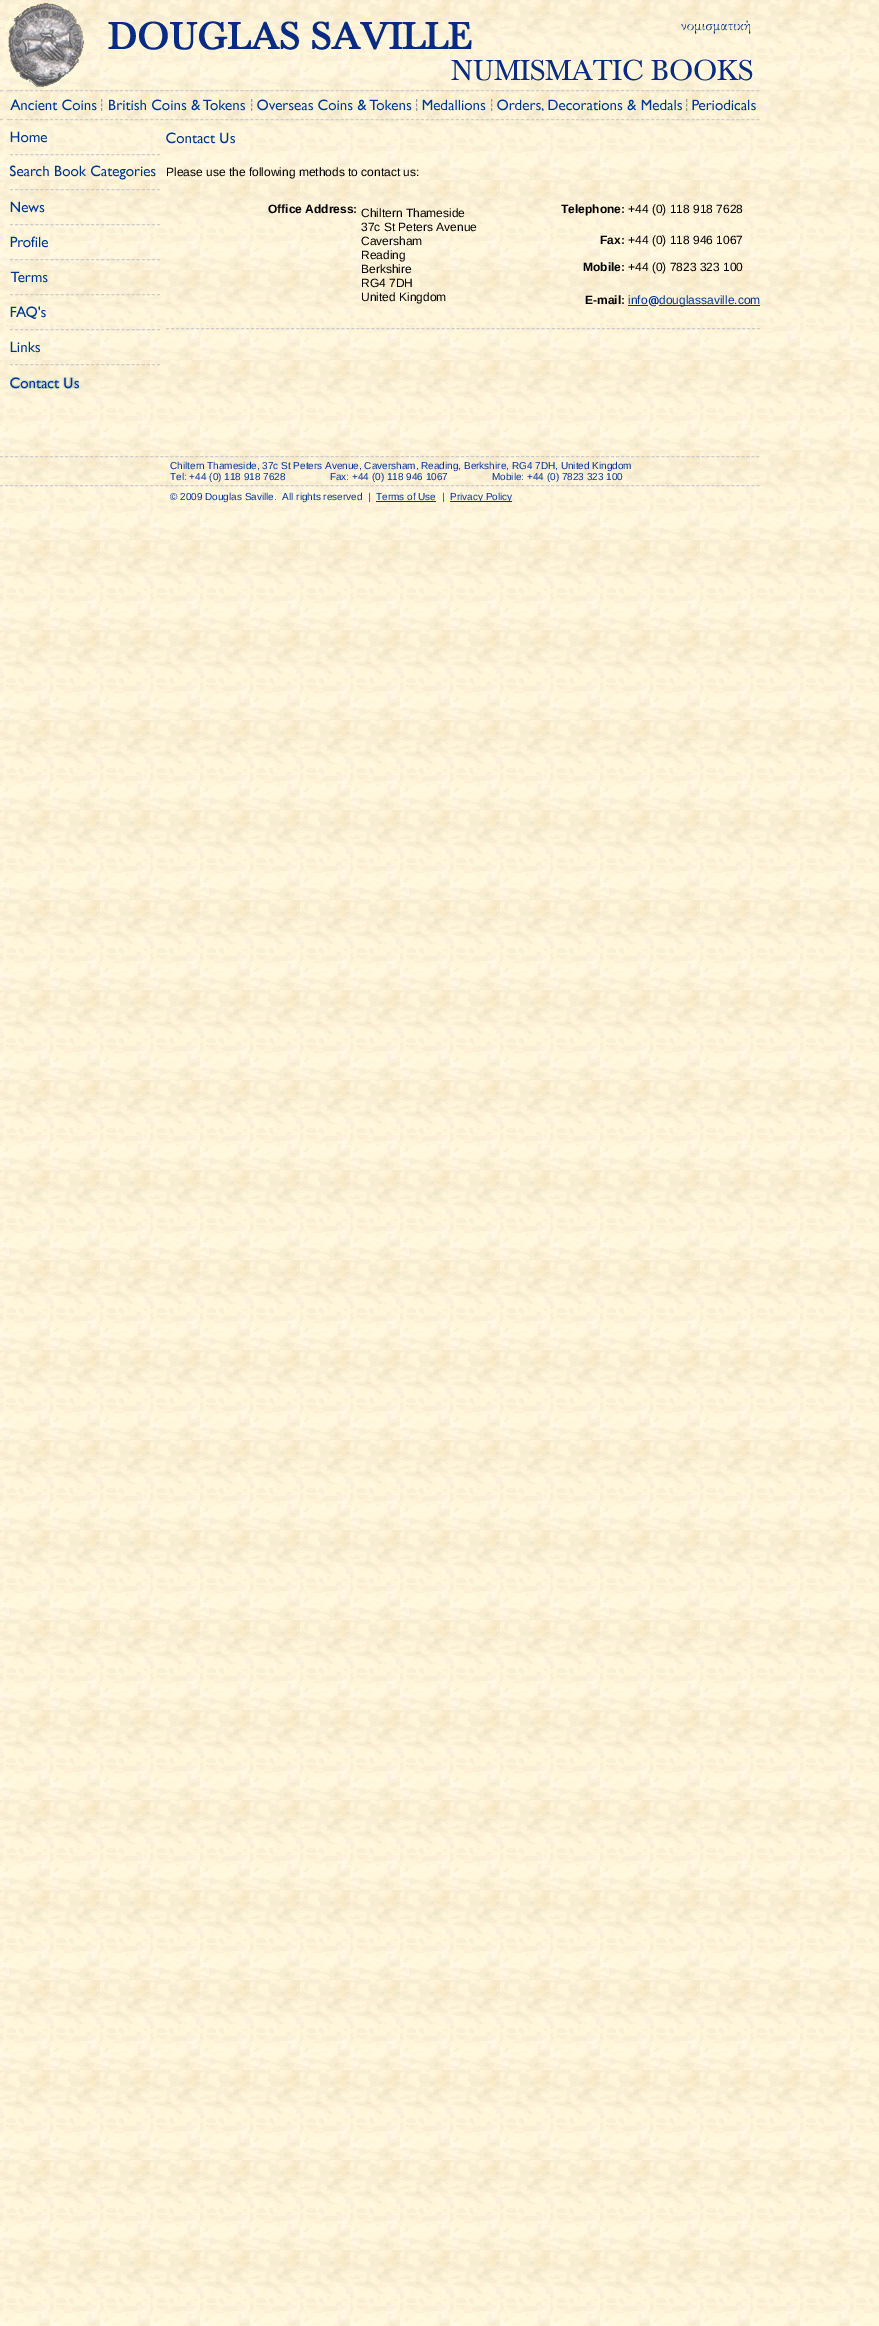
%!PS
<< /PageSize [879 2326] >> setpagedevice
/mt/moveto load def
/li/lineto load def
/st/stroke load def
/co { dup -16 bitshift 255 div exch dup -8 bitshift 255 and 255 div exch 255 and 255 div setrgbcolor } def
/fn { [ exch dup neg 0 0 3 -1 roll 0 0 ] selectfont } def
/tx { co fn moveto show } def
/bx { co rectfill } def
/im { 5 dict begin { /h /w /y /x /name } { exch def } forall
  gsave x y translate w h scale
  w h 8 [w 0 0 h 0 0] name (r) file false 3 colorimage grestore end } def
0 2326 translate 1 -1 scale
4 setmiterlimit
0 0 879 2326 16#FFFFFF bx
(media/1.raw) 0 0 879 2326 im
(media/2.raw) 5 1 748 88 im
16#CCCCCC co
0 90.5 mt 3 90.5 li 7 90.5 mt 10 90.5 li 0 119.5 mt 3 119.5 li 7 119.5 mt 10 119.5 li st
[3 2.01] 0 setdash
10 90.5 mt 760 90.5 li st
10 119.5 mt 760 119.5 li st
16#999999 co
[] 0 setdash
101.5 99 mt 101.5 102 li 101.5 103.5 mt 101.5 106.5 li 101.5 108 mt 101.5 111 li st
(media/3.raw) 10 99 87 12 im
251.5 99 mt 251.5 102 li 251.5 103.5 mt 251.5 106.5 li 251.5 108 mt 251.5 111 li st
(media/4.raw) 109 99 136 12 im
416.5 99 mt 416.5 102 li 416.5 103.5 mt 416.5 106.5 li 416.5 108 mt 416.5 111 li st
(media/5.raw) 257 99 155 12 im
491.5 99 mt 491.5 102 li 491.5 103.5 mt 491.5 106.5 li 491.5 108 mt 491.5 111 li st
(media/6.raw) 422 99 64 12 im
686.5 99 mt 686.5 102 li 686.5 103.5 mt 686.5 106.5 li 686.5 108 mt 686.5 111 li st
(media/7.raw) 497 99 185 12 im
(media/8.raw) 692 99 64 12 im
16#CCCCCC co
[3 2.07] 0 setdash
10 154.5 mt 160 154.5 li st
(media/9.raw) 10 131 37 12 im
10 189.5 mt 160 189.5 li st
(media/10.raw) 10 165 146 15 im
10 224.5 mt 160 224.5 li st
(media/11.raw) 10 201 35 12 im
10 259.5 mt 160 259.5 li st
(media/12.raw) 10 236 38 12 im
10 294.5 mt 160 294.5 li st
(media/13.raw) 10 271 38 12 im
10 329.5 mt 160 329.5 li st
(media/14.raw) 10 306 36 13 im
10 364.5 mt 160 364.5 li st
(media/15.raw) 10 341 30 12 im
(media/16.raw) 10 377 69 12 im
(media/17.raw) 166 132 69 12 im
628 305 20 1 16#003399 bx
(media/18.raw) 648 296 11 11 im
659 305 101 1 16#003399 bx
16#CCCCCC co
[3 2.01] 0 setdash
166 328.5 mt 760 328.5 li st
0 456.5 mt 760 456.5 li st
0 485.5 mt 760 485.5 li st
376 501 60 1 16#003399 bx
450 501 62 1 16#003399 bx
(Please use the following methods to contact us:) 166 176 /LiberationSans-Regular 12 16#000000 tx
(Office Address:) 268 213 /LiberationSans-Bold 12 16#000000 tx
(Chiltern Thameside) 361 217 /LiberationSans-Regular 12 16#000000 tx
(37c St Peters Avenue) 361 231 /LiberationSans-Regular 12 16#000000 tx
(Caversham) 361 245 /LiberationSans-Regular 12 16#000000 tx
(Reading) 361 259 /LiberationSans-Regular 12 16#000000 tx
(Berkshire) 361 273 /LiberationSans-Regular 12 16#000000 tx
(RG4 7DH) 361 287 /LiberationSans-Regular 12 16#000000 tx
(United Kingdom) 361 301 /LiberationSans-Regular 12 16#000000 tx
(Telephone:) 561 213 /LiberationSans-Bold 12 16#000000 tx
(+44 \(0\) 118 918 7628) 628 213 /LiberationSans-Regular 12 16#000000 tx
(Fax:) 600 244 /LiberationSans-Bold 12 16#000000 tx
(+44 \(0\) 118 946 1067) 628 244 /LiberationSans-Regular 12 16#000000 tx
(Mobile:) 583 271 /LiberationSans-Bold 12 16#000000 tx
(+44 \(0\) 7823 323 100) 628 271 /LiberationSans-Regular 12 16#000000 tx
(E-mail:) 585 304 /LiberationSans-Bold 12 16#000000 tx
(info) 628 304 /LiberationSans-Regular 12 16#003399 tx
(douglassaville.com) 659 304 /LiberationSans-Regular 12 16#003399 tx
(Chiltern Thameside, 37c St Peters Avenue, Caversham, Reading, Berkshire, RG4 7DH, United Kingdom) 170 469 /LiberationSans-Regular 10 16#003399 tx
(Tel: +44 \(0\) 118 918 7628                Fax: +44 \(0\) 118 946 1067) 170 480 /LiberationSans-Regular 10 16#003399 tx
(Mobile: +44 \(0\) 7823 323 100) 492 480 /LiberationSans-Regular 10 16#003399 tx
(© 2009 Douglas Saville.  All rights reserved  |) 170 500 /LiberationSans-Regular 10 16#003399 tx
(Terms of Use) 376 500 /LiberationSans-Regular 10 16#003399 tx
(|) 442 500 /LiberationSans-Regular 10 16#003399 tx
(Privacy Policy) 450 500 /LiberationSans-Regular 10 16#003399 tx
showpage
